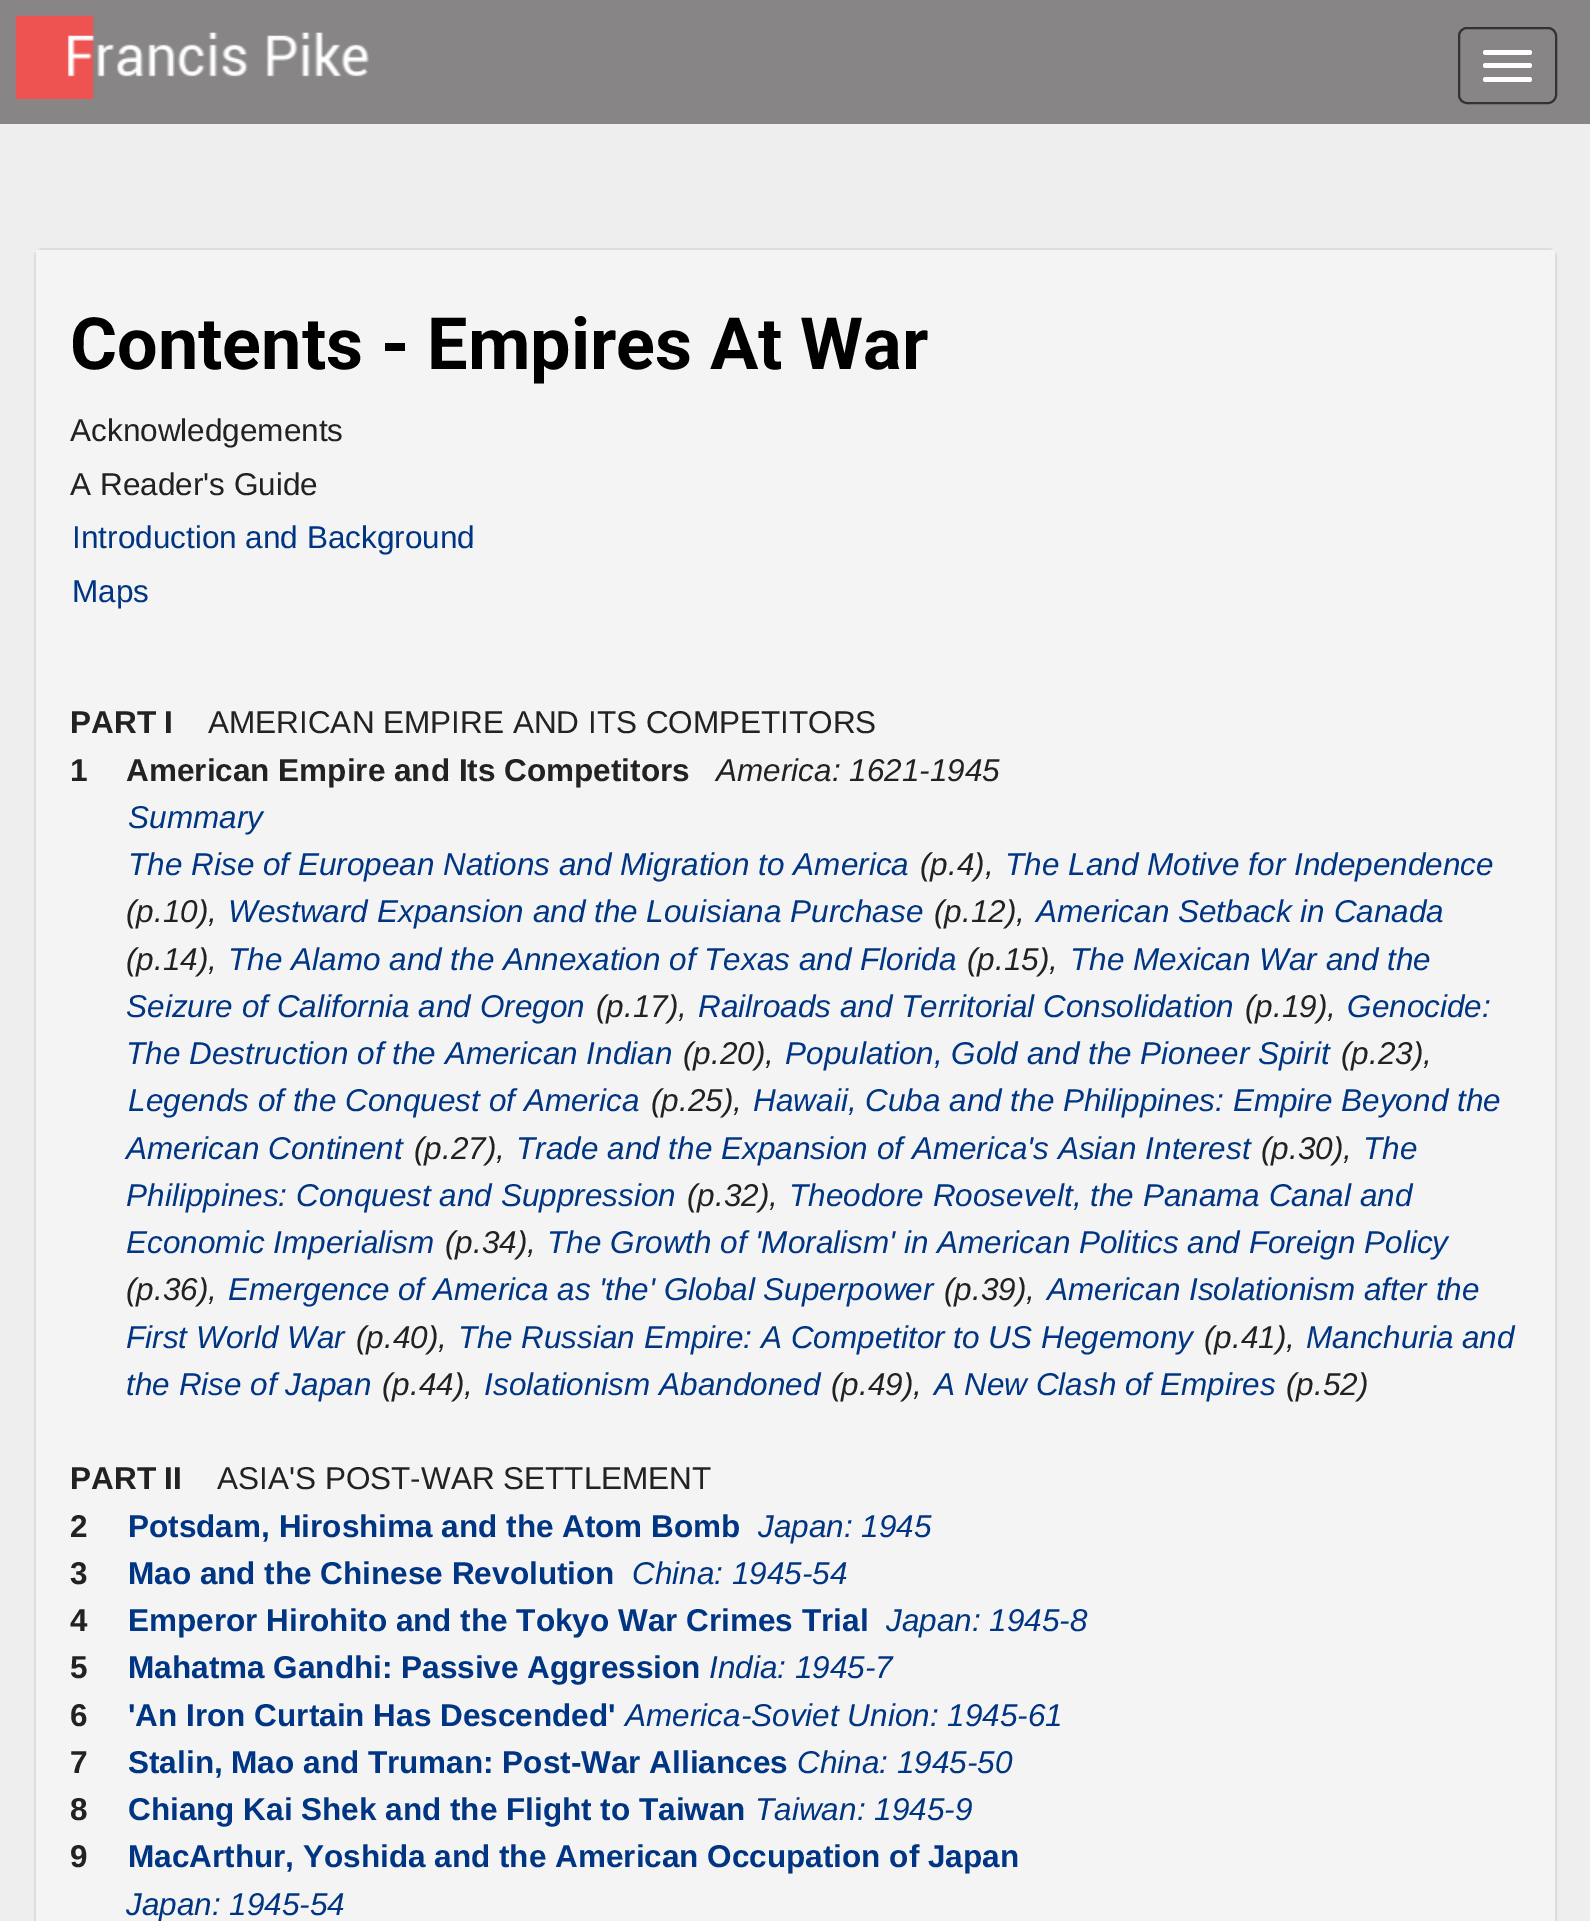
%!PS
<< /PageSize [1590 1921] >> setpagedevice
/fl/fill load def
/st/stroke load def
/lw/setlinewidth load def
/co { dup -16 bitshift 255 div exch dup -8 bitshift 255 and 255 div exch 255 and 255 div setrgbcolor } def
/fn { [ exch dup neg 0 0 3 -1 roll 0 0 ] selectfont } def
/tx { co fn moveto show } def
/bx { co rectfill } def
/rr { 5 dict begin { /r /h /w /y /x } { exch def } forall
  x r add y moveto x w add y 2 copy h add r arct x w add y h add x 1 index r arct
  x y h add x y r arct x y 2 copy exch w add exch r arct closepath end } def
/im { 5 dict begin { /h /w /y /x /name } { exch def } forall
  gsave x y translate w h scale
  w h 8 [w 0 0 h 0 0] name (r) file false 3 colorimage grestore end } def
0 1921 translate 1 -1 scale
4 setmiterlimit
0 0 1590 1921 16#EEEEEE bx
0 0 1590 124 16#878585 bx
(media/1.raw) 15 15 354 84 im
16#333333 co
2 lw
1459 28 97 75 8 rr st
16#FFFFFF co
1483 50 49 5 2.5 rr fl
1483 63 49 5 2.5 rr fl
1483 77 49 5 2.5 rr fl
16#DDDDDD co
35 249 1521 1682 8 rr st
36 250 1519 1671 16#F4F4F4 bx
(Contents - Empires At War) 70 369 /Roboto-Bold 72 16#000000 tx
(Acknowledgements) 70 441 /LiberationSans-Regular 31.5 16#222222 tx
(A Reader's Guide) 70 495 /LiberationSans-Regular 31.5 16#222222 tx
(Introduction and Background) 72 548 /LiberationSans-Regular 31.5 16#003583 tx
(Maps) 72 602 /LiberationSans-Regular 31.5 16#003583 tx
(PART I) 70 733 /LiberationSans-Bold 31.5 16#222222 tx
(AMERICAN EMPIRE AND ITS COMPETITORS) 208 733 /LiberationSans-Regular 31.5 16#222222 tx
(1) 70 781 /LiberationSans-Bold 31.5 16#222222 tx
(American Empire and Its Competitors) 126 781 /LiberationSans-Bold 31.5 16#222222 tx
(America: 1621-1945) 716 781 /LiberationSans-Italic 31.5 16#222222 tx
(Summary) 128 828 /LiberationSans-Italic 31.5 16#003583 tx
(The Rise of European Nations and Migration to America) 128 875 /LiberationSans-Italic 31.5 16#003583 tx
(\(p.4\),) 920 875 /LiberationSans-Italic 31.5 16#222222 tx
(The Land Motive for Independence) 1005 875 /LiberationSans-Italic 31.5 16#003583 tx
(\(p.10\),) 126 922 /LiberationSans-Italic 31.5 16#222222 tx
(Westward Expansion and the Louisiana Purchase) 228 922 /LiberationSans-Italic 31.5 16#003583 tx
(\(p.12\),) 934 922 /LiberationSans-Italic 31.5 16#222222 tx
(American Setback in Canada) 1036 922 /LiberationSans-Italic 31.5 16#003583 tx
(\(p.14\),) 126 970 /LiberationSans-Italic 31.5 16#222222 tx
(The Alamo and the Annexation of Texas and Florida) 228 970 /LiberationSans-Italic 31.5 16#003583 tx
(\(p.15\),) 967 970 /LiberationSans-Italic 31.5 16#222222 tx
(The Mexican War and the) 1070 970 /LiberationSans-Italic 31.5 16#003583 tx
(Seizure of California and Oregon) 126 1017 /LiberationSans-Italic 31.5 16#003583 tx
(\(p.17\),) 596 1017 /LiberationSans-Italic 31.5 16#222222 tx
(Railroads and Territorial Consolidation) 698 1017 /LiberationSans-Italic 31.5 16#003583 tx
(\(p.19\),) 1245 1017 /LiberationSans-Italic 31.5 16#222222 tx
(Genocide:) 1347 1017 /LiberationSans-Italic 31.5 16#003583 tx
(The Destruction of the American Indian) 126 1064 /LiberationSans-Italic 31.5 16#003583 tx
(\(p.20\),) 683 1064 /LiberationSans-Italic 31.5 16#222222 tx
(Population, Gold and the Pioneer Spirit) 785 1064 /LiberationSans-Italic 31.5 16#003583 tx
(\(p.23\),) 1341 1064 /LiberationSans-Italic 31.5 16#222222 tx
(Legends of the Conquest of America) 128 1111 /LiberationSans-Italic 31.5 16#003583 tx
(\(p.25\),) 651 1111 /LiberationSans-Italic 31.5 16#222222 tx
(Hawaii, Cuba and the Philippines: Empire Beyond the) 753 1111 /LiberationSans-Italic 31.5 16#003583 tx
(American Continent) 126 1159 /LiberationSans-Italic 31.5 16#003583 tx
(\(p.27\),) 414 1159 /LiberationSans-Italic 31.5 16#222222 tx
(Trade and the Expansion of America's Asian Interest) 516 1159 /LiberationSans-Italic 31.5 16#003583 tx
(\(p.30\),) 1261 1159 /LiberationSans-Italic 31.5 16#222222 tx
(The) 1363 1159 /LiberationSans-Italic 31.5 16#003583 tx
(Philippines: Conquest and Suppression) 126 1206 /LiberationSans-Italic 31.5 16#003583 tx
(\(p.32\),) 687 1206 /LiberationSans-Italic 31.5 16#222222 tx
(Theodore Roosevelt, the Panama Canal and) 789 1206 /LiberationSans-Italic 31.5 16#003583 tx
(Economic Imperialism) 126 1253 /LiberationSans-Italic 31.5 16#003583 tx
(\(p.34\),) 445 1253 /LiberationSans-Italic 31.5 16#222222 tx
(The Growth of 'Moralism' in American Politics and Foreign Policy) 547 1253 /LiberationSans-Italic 31.5 16#003583 tx
(\(p.36\),) 126 1300 /LiberationSans-Italic 31.5 16#222222 tx
(Emergence of America as 'the' Global Superpower) 228 1300 /LiberationSans-Italic 31.5 16#003583 tx
(\(p.39\),) 944 1300 /LiberationSans-Italic 31.5 16#222222 tx
(American Isolationism after the) 1047 1300 /LiberationSans-Italic 31.5 16#003583 tx
(First World War) 126 1348 /LiberationSans-Italic 31.5 16#003583 tx
(\(p.40\),) 356 1348 /LiberationSans-Italic 31.5 16#222222 tx
(The Russian Empire: A Competitor to US Hegemony) 458 1348 /LiberationSans-Italic 31.5 16#003583 tx
(\(p.41\),) 1204 1348 /LiberationSans-Italic 31.5 16#222222 tx
(Manchuria and) 1306 1348 /LiberationSans-Italic 31.5 16#003583 tx
(the Rise of Japan) 126 1395 /LiberationSans-Italic 31.5 16#003583 tx
(\(p.44\),) 382 1395 /LiberationSans-Italic 31.5 16#222222 tx
(Isolationism Abandoned) 484 1395 /LiberationSans-Italic 31.5 16#003583 tx
(\(p.49\),) 831 1395 /LiberationSans-Italic 31.5 16#222222 tx
(A New Clash of Empires) 934 1395 /LiberationSans-Italic 31.5 16#003583 tx
(\(p.52\)) 1286 1395 /LiberationSans-Italic 31.5 16#222222 tx
(PART II) 70 1489 /LiberationSans-Bold 31.5 16#222222 tx
(ASIA'S POST-WAR SETTLEMENT) 217 1489 /LiberationSans-Regular 31.5 16#222222 tx
(2) 70 1537 /LiberationSans-Bold 31.5 16#222222 tx
(Potsdam, Hiroshima and the Atom Bomb) 128 1537 /LiberationSans-Bold 31.5 16#003583 tx
(Japan: 1945) 758 1537 /LiberationSans-Italic 31.5 16#003583 tx
(3) 70 1584 /LiberationSans-Bold 31.5 16#222222 tx
(Mao and the Chinese Revolution) 128 1584 /LiberationSans-Bold 31.5 16#003583 tx
(China: 1945-54) 632 1584 /LiberationSans-Italic 31.5 16#003583 tx
(4) 70 1631 /LiberationSans-Bold 31.5 16#222222 tx
(Emperor Hirohito and the Tokyo War Crimes Trial) 128 1631 /LiberationSans-Bold 31.5 16#003583 tx
(Japan: 1945-8) 886 1631 /LiberationSans-Italic 31.5 16#003583 tx
(5) 70 1678 /LiberationSans-Bold 31.5 16#222222 tx
(Mahatma Gandhi: Passive Aggression) 128 1678 /LiberationSans-Bold 31.5 16#003583 tx
(India: 1945-7) 709 1678 /LiberationSans-Italic 31.5 16#003583 tx
(6) 70 1726 /LiberationSans-Bold 31.5 16#222222 tx
('An Iron Curtain Has Descended') 128 1726 /LiberationSans-Bold 31.5 16#003583 tx
(America-Soviet Union: 1945-61) 625 1726 /LiberationSans-Italic 31.5 16#003583 tx
(7) 70 1773 /LiberationSans-Bold 31.5 16#222222 tx
(Stalin, Mao and Truman: Post-War Alliances) 128 1773 /LiberationSans-Bold 31.5 16#003583 tx
(China: 1945-50) 797 1773 /LiberationSans-Italic 31.5 16#003583 tx
(8) 70 1820 /LiberationSans-Bold 31.5 16#222222 tx
(Chiang Kai Shek and the Flight to Taiwan) 128 1820 /LiberationSans-Bold 31.5 16#003583 tx
(Taiwan: 1945-9) 755 1820 /LiberationSans-Italic 31.5 16#003583 tx
(9) 70 1867 /LiberationSans-Bold 31.5 16#222222 tx
(MacArthur, Yoshida and the American Occupation of Japan) 128 1867 /LiberationSans-Bold 31.5 16#003583 tx
(Japan: 1945-54) 126 1915 /LiberationSans-Italic 31.5 16#003583 tx
showpage
